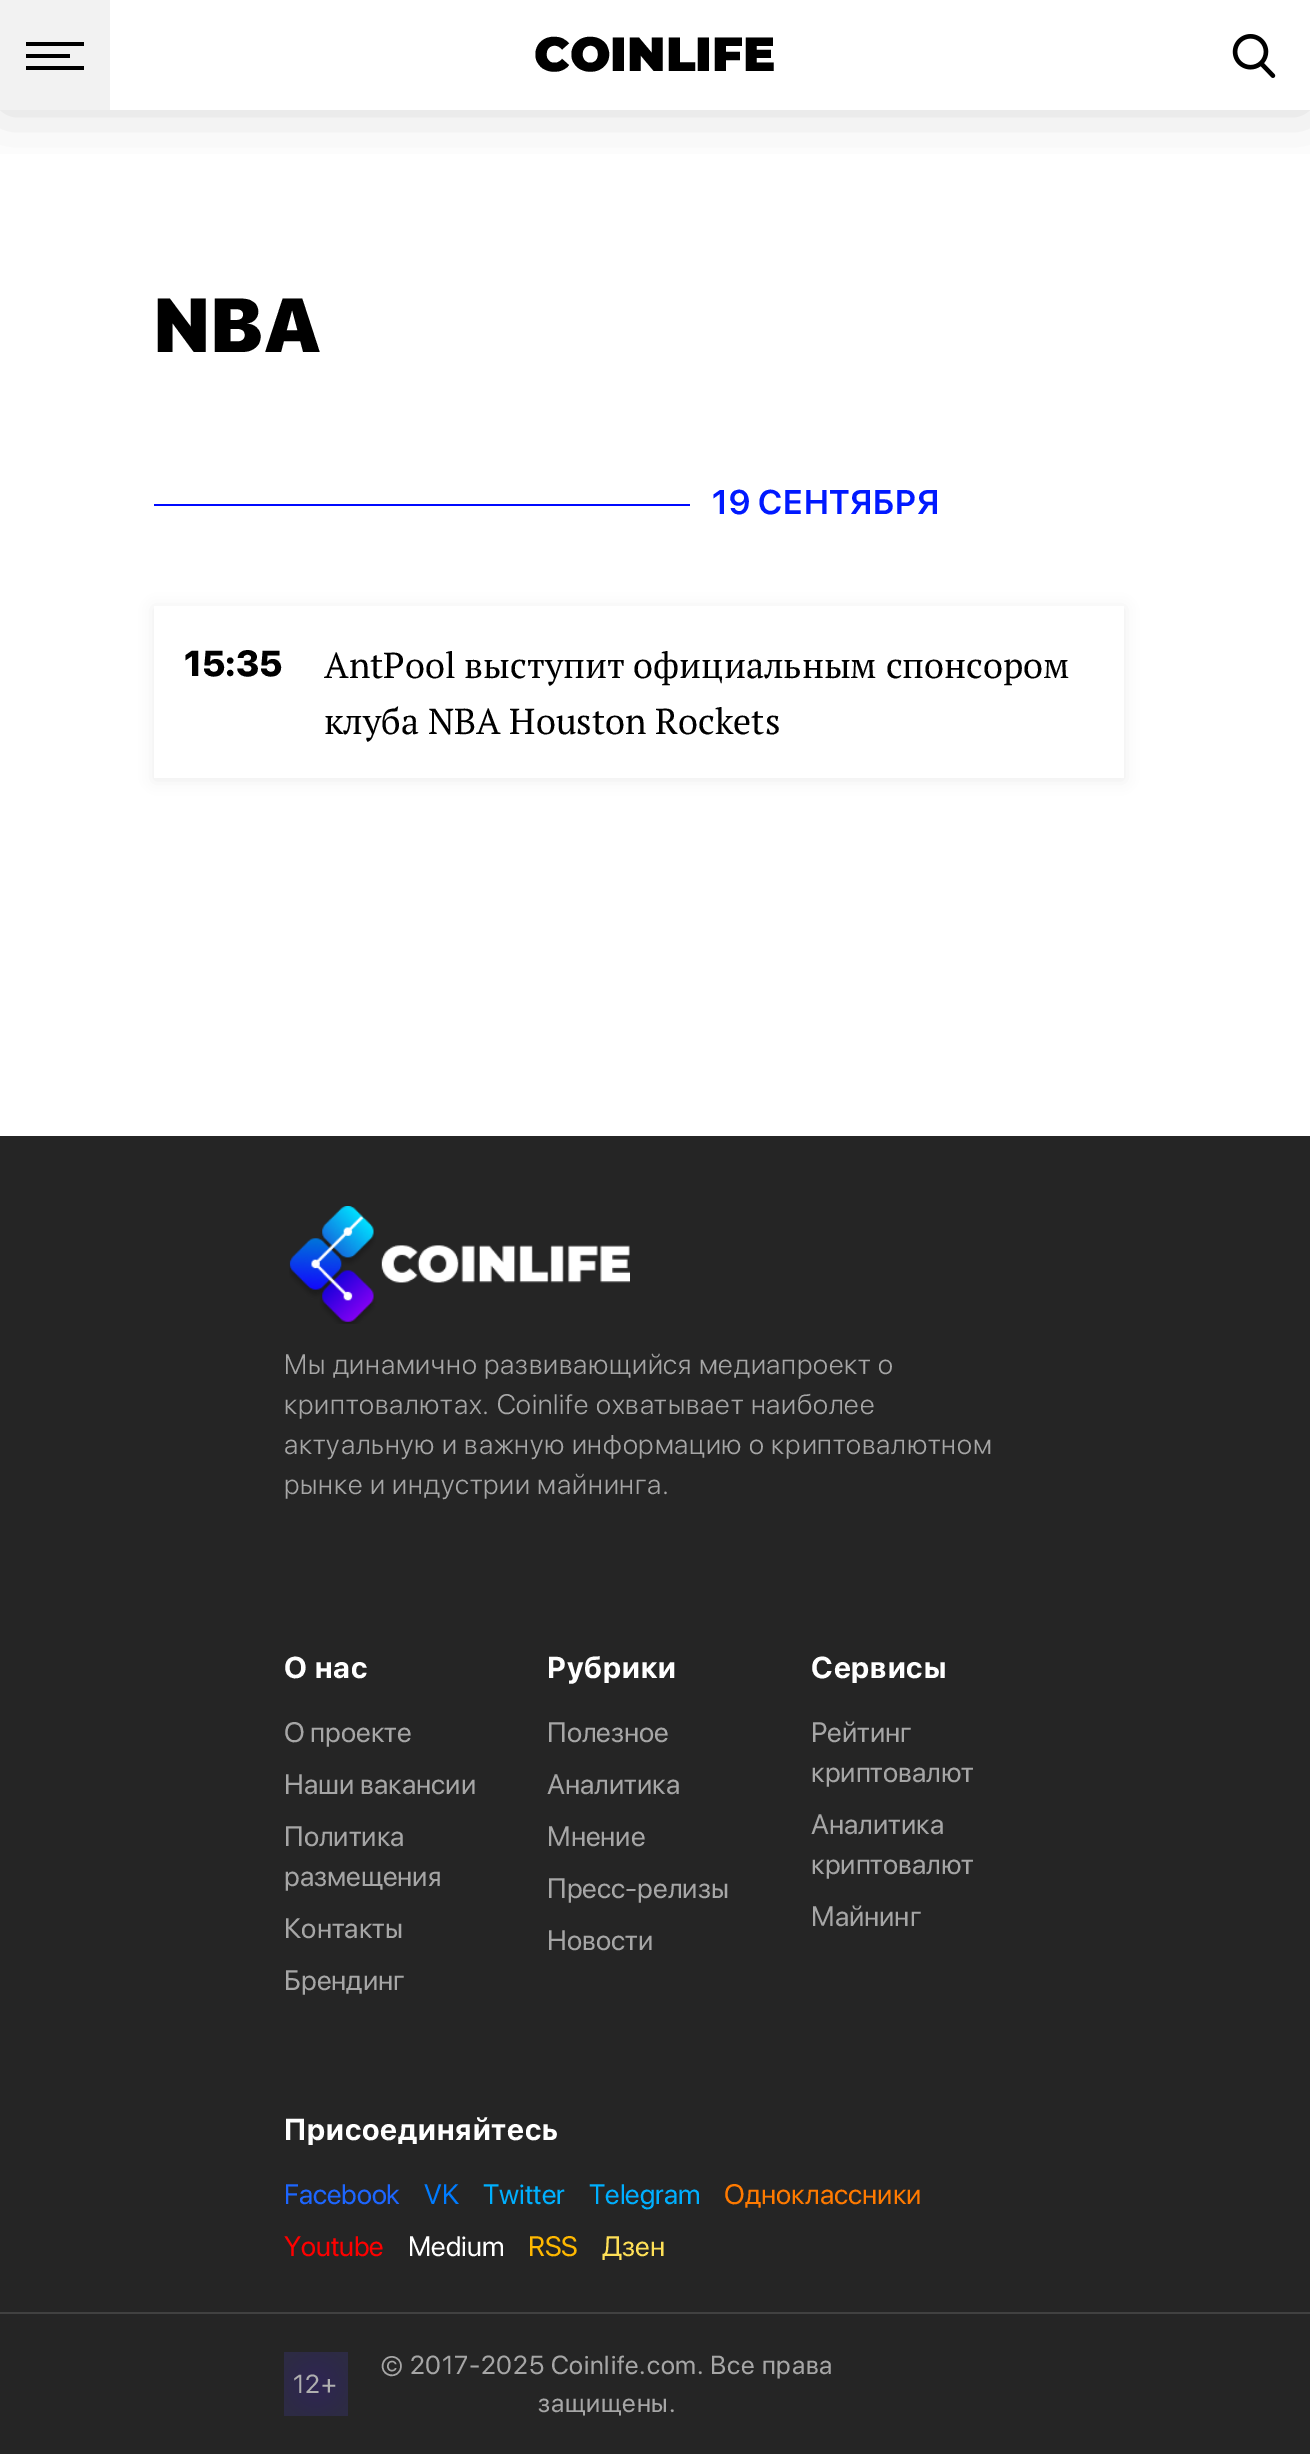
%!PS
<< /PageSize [1310 2454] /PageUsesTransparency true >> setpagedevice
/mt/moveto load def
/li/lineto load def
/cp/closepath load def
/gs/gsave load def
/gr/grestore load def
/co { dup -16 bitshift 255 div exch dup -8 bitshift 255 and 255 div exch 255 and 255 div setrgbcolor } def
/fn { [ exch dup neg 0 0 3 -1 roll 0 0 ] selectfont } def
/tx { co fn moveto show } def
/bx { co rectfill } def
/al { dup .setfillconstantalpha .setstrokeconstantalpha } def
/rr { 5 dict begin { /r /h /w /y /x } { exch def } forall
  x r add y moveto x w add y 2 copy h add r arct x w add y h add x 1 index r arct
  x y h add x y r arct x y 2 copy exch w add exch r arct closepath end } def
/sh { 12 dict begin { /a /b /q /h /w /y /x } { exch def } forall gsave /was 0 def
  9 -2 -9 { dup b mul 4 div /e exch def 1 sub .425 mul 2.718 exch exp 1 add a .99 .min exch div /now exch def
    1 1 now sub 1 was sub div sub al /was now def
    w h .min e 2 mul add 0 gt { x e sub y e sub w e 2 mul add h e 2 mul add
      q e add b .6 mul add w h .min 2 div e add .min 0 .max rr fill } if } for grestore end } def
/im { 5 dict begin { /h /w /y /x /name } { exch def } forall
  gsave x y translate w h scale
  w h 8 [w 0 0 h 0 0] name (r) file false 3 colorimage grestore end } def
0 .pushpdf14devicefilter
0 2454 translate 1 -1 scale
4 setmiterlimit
0 0 1310 2454 16#FFFFFF bx
gs
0 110 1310 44 rectclip
16#787878 co
0 0 1310 110 0 30 .28 sh
gr
0 0 110 110 16#F2F2F2 bx
26 42 58 4 16#000000 bx
26 54 44 4 16#000000 bx
26 66 58 4 16#000000 bx
(media/1.raw) 1232 34 44 44 im
154 504 536 2 16#000AFF bx
gs
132 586 mt 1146 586 li 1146 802 li 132 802 li cp 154 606 mt 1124 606 li 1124 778 li 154 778 li cp eoclip newpath
16#000000 co
154 608 970 172 0 7 .07 sh
gr
0 1136 1310 1176 16#252525 bx
(media/2.raw) 289 1206 341 118 im
0 2314 1310 140 16#252525 bx
0 2312 1310 2 16#414141 bx
gs 284 2352 mt 348 2352 li 348 2416 li 284 2416 li cp clip newpath 316 2384 translate 36 36 scale
<< /ShadingType 3 /ColorSpace /DeviceRGB /Coords [0 0 0 0 0 1] /Extend [true true] /Function << /FunctionType 2 /Domain [0 1] /C0 [.184 .145 .329] /C1 [.176 .169 .267] /N 1 >> >> shfill gr
(COINLIFE) 534 71 /Montserrat-Black 48 16#000000 tx
/SFProDisplay-Black 76 fn
154 352 mt 1.5 0 (NBA) ashow
/SFProDisplay-SemiBold 34 fn
16#0019FF co
712 514 mt .75 0 (19 СЕНТЯБРЯ) ashow
(15:35) 184 676 /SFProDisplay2-Black 36 16#000000 tx
(AntPool выступит официальным спонсором) 324 678 /PTSerif-Regular 36 16#000000 tx
(клуба NBA Houston Rockets) 324 734 /PTSerif-Regular 36 16#000000 tx
/SFProDisplay-Light 28 fn
16#A6A6A6 co
284 1374 mt .85 0 (Мы динамично развивающийся медиапроект о) ashow
284 1414 mt .85 0 (криптовалютах. Coinlife охватывает наиболее) ashow
284 1454 mt .85 0 (актуальную и важную информацию о криптовалютном) ashow
284 1494 mt .85 0 (рынке и индустрии майнинга.) ashow
/SFProDisplay-Bold 30 fn
16#FFFFFF co
284 1678 mt .9 0 (О нас) ashow
(О проекте) 284 1742 /SFProDisplay-Regular 28 16#A6A6A6 tx
(Наши вакансии) 284 1794 /SFProDisplay-Regular 28 16#A6A6A6 tx
(Политика) 284 1846 /SFProDisplay-Regular 28 16#A6A6A6 tx
(размещения) 284 1886 /SFProDisplay-Regular 28 16#A6A6A6 tx
(Контакты) 284 1938 /SFProDisplay-Regular 28 16#A6A6A6 tx
(Брендинг) 284 1990 /SFProDisplay-Regular 28 16#A6A6A6 tx
/SFProDisplay-Bold 30 fn
16#FFFFFF co
547 1678 mt .9 0 (Рубрики) ashow
(Полезное) 547 1742 /SFProDisplay-Regular 28 16#A6A6A6 tx
(Аналитика) 547 1794 /SFProDisplay-Regular 28 16#A6A6A6 tx
(Мнение) 547 1846 /SFProDisplay-Regular 28 16#A6A6A6 tx
(Пресс-релизы) 547 1898 /SFProDisplay-Regular 28 16#A6A6A6 tx
(Новости) 547 1950 /SFProDisplay-Regular 28 16#A6A6A6 tx
/SFProDisplay-Bold 30 fn
16#FFFFFF co
811 1678 mt .9 0 (Сервисы) ashow
(Рейтинг) 811 1742 /SFProDisplay-Regular 28 16#A6A6A6 tx
(криптовалют) 811 1782 /SFProDisplay-Regular 28 16#A6A6A6 tx
(Аналитика) 811 1834 /SFProDisplay-Regular 28 16#A6A6A6 tx
(криптовалют) 811 1874 /SFProDisplay-Regular 28 16#A6A6A6 tx
(Майнинг) 811 1926 /SFProDisplay-Regular 28 16#A6A6A6 tx
/SFProDisplay-Bold 30 fn
16#FFFFFF co
284 2140 mt .9 0 (Присоединяйтесь) ashow
(Facebook) 284 2204 /SFProDisplay-Regular 28 16#1D66FF tx
(VK) 424 2204 /SFProDisplay-Regular 28 16#007CFF tx
(Twitter) 483 2204 /SFProDisplay-Regular 28 16#00B0FF tx
(Telegram) 589 2204 /SFProDisplay-Regular 28 16#00B0FF tx
(Одноклассники) 724 2204 /SFProDisplay-Regular 28 16#FF7A00 tx
(Youtube) 284 2256 /SFProDisplay-Regular 28 16#FF0000 tx
(Medium) 408 2256 /SFProDisplay-Regular 28 16#FFFFFF tx
(RSS) 528 2256 /SFProDisplay-Regular 28 16#FFB800 tx
(Дзен) 602 2256 /SFProDisplay-Regular 28 16#FFE057 tx
/SFProDisplay-Regular 26 fn
16#AFAFAF co
293 2393 mt .8 0 (12+) ashow
16#A6A6A6 co
381 2374 mt .8 0 (© 2017-2025 Coinlife.com. Все права) ashow
538 2412 mt .8 0 (защищены.) ashow
.poppdf14devicefilter showpage
